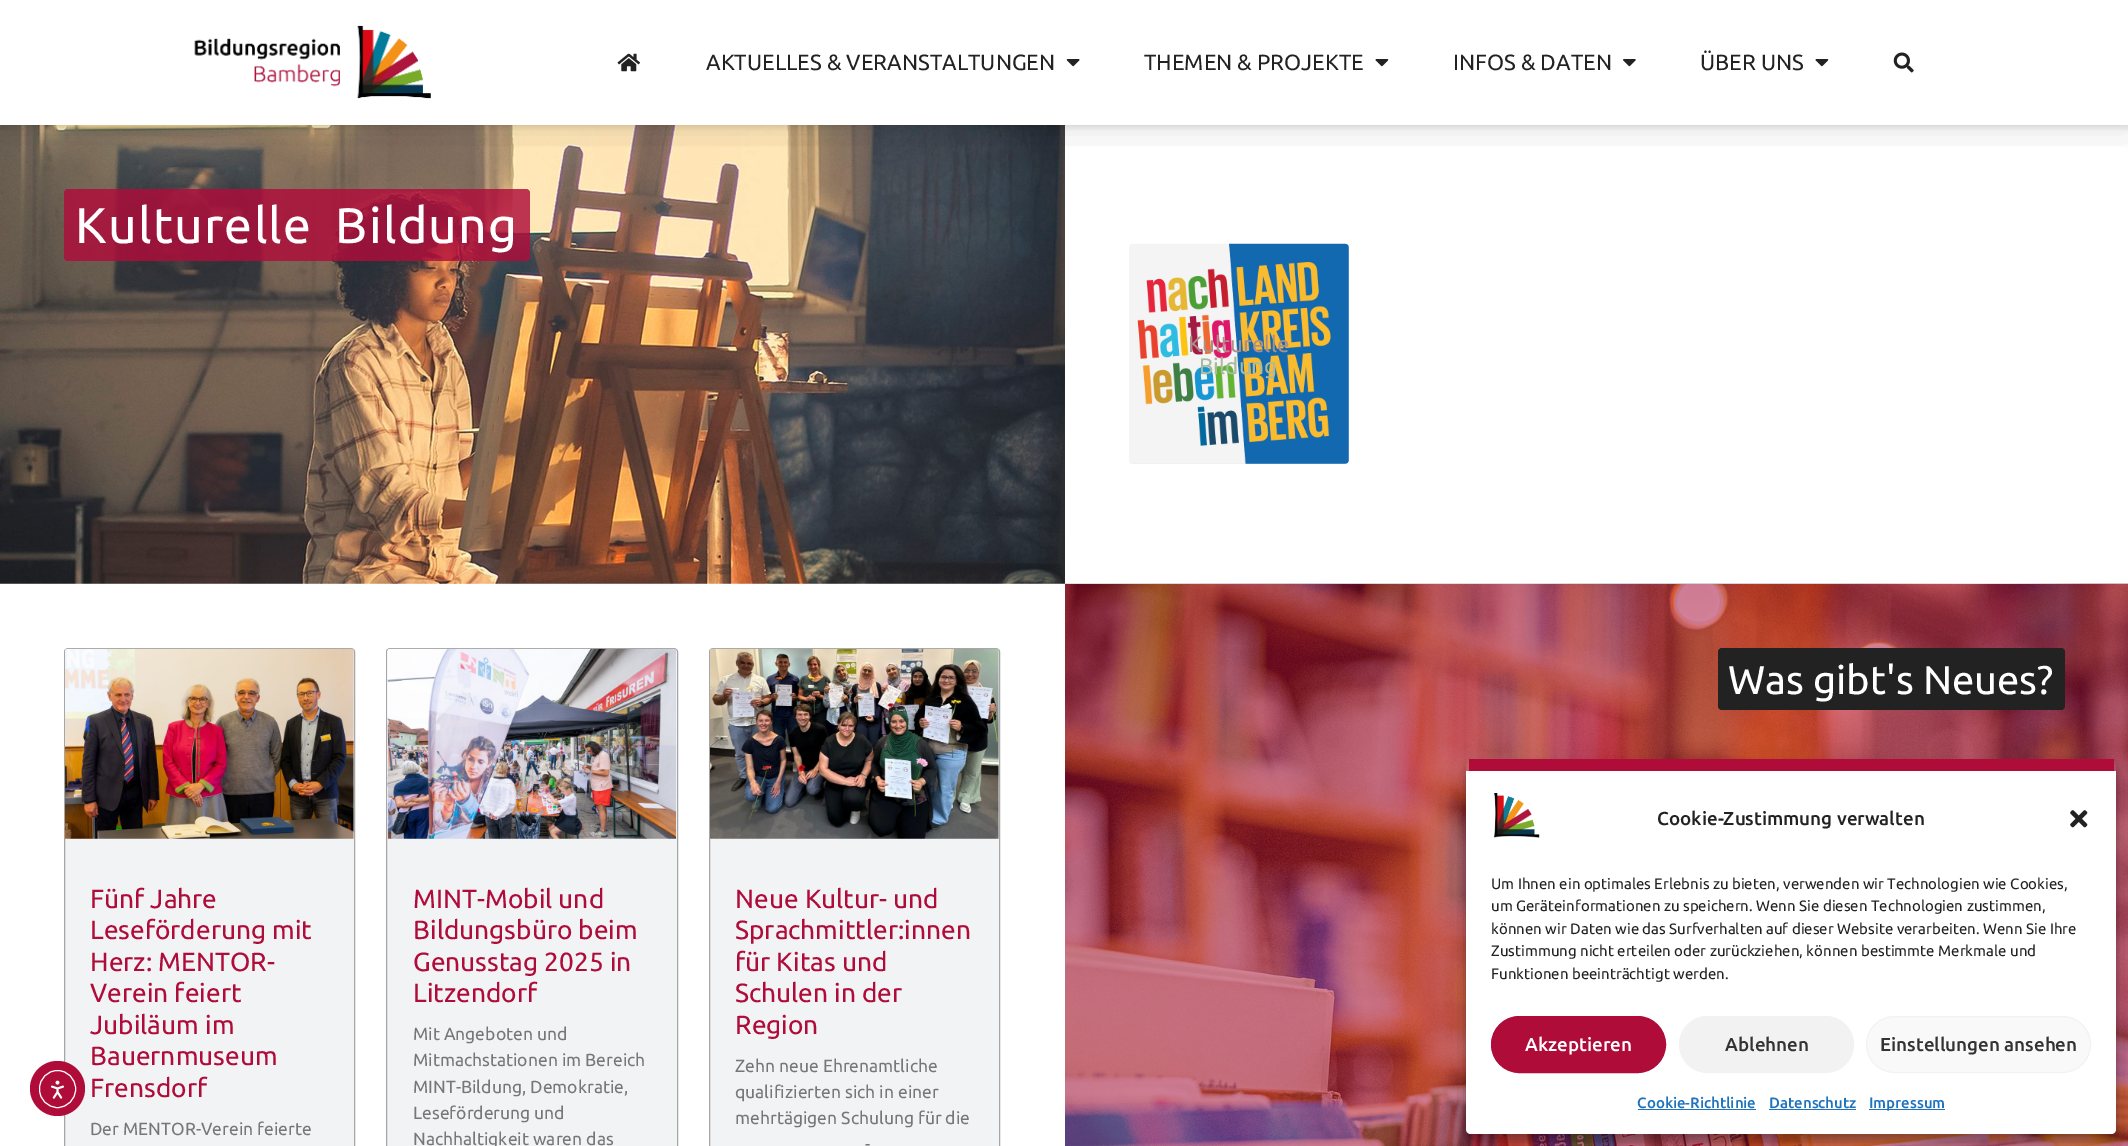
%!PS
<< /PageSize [2128 1146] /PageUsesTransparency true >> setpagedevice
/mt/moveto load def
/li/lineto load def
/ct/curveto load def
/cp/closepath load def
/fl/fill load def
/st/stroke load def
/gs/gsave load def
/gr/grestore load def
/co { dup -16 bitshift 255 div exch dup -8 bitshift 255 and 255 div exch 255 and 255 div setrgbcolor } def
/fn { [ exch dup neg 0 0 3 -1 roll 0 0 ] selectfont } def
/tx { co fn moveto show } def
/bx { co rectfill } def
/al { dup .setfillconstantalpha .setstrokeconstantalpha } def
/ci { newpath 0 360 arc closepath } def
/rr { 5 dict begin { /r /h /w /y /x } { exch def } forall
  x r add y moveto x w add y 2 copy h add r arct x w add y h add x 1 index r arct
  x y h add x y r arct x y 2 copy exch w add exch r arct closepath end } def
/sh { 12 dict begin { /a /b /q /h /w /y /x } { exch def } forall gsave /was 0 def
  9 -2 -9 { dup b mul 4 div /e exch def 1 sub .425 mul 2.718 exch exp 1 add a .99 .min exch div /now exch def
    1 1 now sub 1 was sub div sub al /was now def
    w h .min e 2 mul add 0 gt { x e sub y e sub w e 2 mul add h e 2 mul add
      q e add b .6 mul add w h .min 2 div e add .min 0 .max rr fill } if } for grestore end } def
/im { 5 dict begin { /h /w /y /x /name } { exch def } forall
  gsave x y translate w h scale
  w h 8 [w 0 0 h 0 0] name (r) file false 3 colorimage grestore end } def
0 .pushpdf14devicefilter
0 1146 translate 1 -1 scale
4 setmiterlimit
0 0 2128 1146 16#FFFFFF bx
(media/7.raw) 0 125 1065 459 im
gs
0 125 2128 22 rectclip
16#000000 co
0 6 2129 125 0 19 .1 sh
gr
gs
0 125 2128 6 rectclip
16#000000 co
0 3 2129 125 0 3 .1 sh
gr
(media/1.raw) 194 25 237 74 im
(media/2.raw) 617 53 23 19 im
(media/3.raw) 1066 59 14 8 im
(media/4.raw) 1375 59 14 8 im
(media/5.raw) 1623 59 13 8 im
(media/4.raw) 1815 59 14 8 im
(media/6.raw) 1893 52 21 21 im
0.82 al
16#AF0C3A co
64 189 466 72 4 rr fl
1 al
16#E6E6E6 co
1129 244 220 220 4 rr fl
(media/8.raw) 1129 243 220 221 im
(media/9.raw) 1065 583 1063 563 im
16#222222 co
1718 648 347 62 4 rr fl
16#F1F3F5 co
64.5 648.5 290 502 3.5 rr gs fl gr
16#A6A6A6 co
st
(media/10.raw) 65 648 289 191 im
16#F1F3F5 co
386.5 648.5 291 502 3.5 rr gs fl gr
16#A6A6A6 co
st
(media/11.raw) 387 648 290 191 im
16#F1F3F5 co
709.5 648.5 290 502 3.5 rr gs fl gr
16#A6A6A6 co
st
(media/12.raw) 710 648 289 191 im
16#AF0C3A co
57.5 1088.5 27.5 ci fl
16#FFFFFF co
39.5 1070.5 36 37 18 rr st
(media/13.raw) 50 1080 14 19 im
gs
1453 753 mt 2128 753 li 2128 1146 li 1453 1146 li cp 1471 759 mt 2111 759 li 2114 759 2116 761 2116 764 ct 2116 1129 li 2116 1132 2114 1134 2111 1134 ct 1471 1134 li 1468 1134 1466 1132 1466 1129 ct 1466 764 li 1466 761 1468 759 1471 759 ct cp eoclip newpath
16#000000 co
1466 766 650 375 5 4 .23 sh
gr
gs
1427 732 mt 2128 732 li 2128 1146 li 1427 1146 li cp 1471 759 mt 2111 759 li 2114 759 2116 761 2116 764 ct 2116 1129 li 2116 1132 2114 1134 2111 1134 ct 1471 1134 li 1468 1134 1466 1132 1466 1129 ct 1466 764 li 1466 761 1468 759 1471 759 ct cp eoclip newpath
16#000000 co
1466 771 650 375 5 12.5 .19 sh
gr
1471 771 mt 2116 771 li 2116 1129 li 2116 1132 2114 1134 2111 1134 ct 1471 1134 li 1468 1134 1466 1132 1466 1129 ct 1466 771 li cp fl
1469 759 645 12 16#AF0C3A bx
(media/14.raw) 1494 793 46 45 im
(media/15.raw) 2070 810 18 18 im
1491.5 1016.5 174 56 28 rr gs fl gr
st
16#F2F2F2 co
1679.5 1016.5 174 56 28 rr gs fl gr
st
16#F9F9F9 co
1866.5 1016.5 224 56 28 rr gs fl gr
16#F2F2F2 co
st
1638 1109 118 1 16#1E73BE bx
1769 1109 87 1 16#1E73BE bx
1869 1109 76 1 16#1E73BE bx
(AKTUELLES & VERANSTALTUNGEN) 706 70 /Ubuntu-Regular 22 16#222222 tx
(THEMEN & PROJEKTE) 1144 70 /Ubuntu-Regular 22 16#222222 tx
(INFOS & DATEN) 1453 70 /Ubuntu-Regular 22 16#222222 tx
(ÜBER UNS) 1700 70 /Ubuntu-Regular 22 16#222222 tx
/Ubuntu-Regular 50 fn
16#FFFFFF co
75 243 mt 10 0 32 1.25 0 (Kulturelle Bildung) awidthshow
(Kulturelle) 1188 352 /Ubuntu-Regular 22.5 16#AE8E89 tx
(Bildung) 1199 374 /Ubuntu-Regular 22.5 16#A9BB9F tx
(Was gibt's Neues?) 1728 694 /Ubuntu-Regular 40 16#FFFFFF tx
(Fünf Jahre) 90 908 /Ubuntu-Regular 26.25 16#AF0C3A tx
(Leseförderung mit) 90 939 /Ubuntu-Regular 26.25 16#AF0C3A tx
(Herz: MENTOR-) 90 971 /Ubuntu-Regular 26.25 16#AF0C3A tx
(Verein feiert) 90 1002 /Ubuntu-Regular 26.25 16#AF0C3A tx
(Jubiläum im) 90 1034 /Ubuntu-Regular 26.25 16#AF0C3A tx
(Bauernmuseum) 90 1065 /Ubuntu-Regular 26.25 16#AF0C3A tx
(Frensdorf) 90 1097 /Ubuntu-Regular 26.25 16#AF0C3A tx
(Der MENTOR-Verein feierte) 90 1135 /Ubuntu-Regular 17.5 16#777777 tx
(MINT-Mobil und) 413 908 /Ubuntu-Regular 26.25 16#AF0C3A tx
(Bildungsbüro beim) 413 939 /Ubuntu-Regular 26.25 16#AF0C3A tx
(Genusstag 2025 in) 413 971 /Ubuntu-Regular 26.25 16#AF0C3A tx
(Litzendorf) 413 1002 /Ubuntu-Regular 26.25 16#AF0C3A tx
(Mit Angeboten und) 413 1040 /Ubuntu-Regular 17.5 16#777777 tx
(Mitmachstationen im Bereich) 413 1066 /Ubuntu-Regular 17.5 16#777777 tx
(MINT-Bildung, Demokratie,) 413 1093 /Ubuntu-Regular 17.5 16#777777 tx
(Leseförderung und) 413 1119 /Ubuntu-Regular 17.5 16#777777 tx
(Nachhaltigkeit waren das) 413 1145 /Ubuntu-Regular 17.5 16#777777 tx
(Neue Kultur- und) 735 908 /Ubuntu-Regular 26.25 16#AF0C3A tx
(Sprachmittler:innen) 735 939 /Ubuntu-Regular 26.25 16#AF0C3A tx
(für Kitas und) 735 971 /Ubuntu-Regular 26.25 16#AF0C3A tx
(Schulen in der) 735 1002 /Ubuntu-Regular 26.25 16#AF0C3A tx
(Region) 735 1034 /Ubuntu-Regular 26.25 16#AF0C3A tx
(Zehn neue Ehrenamtliche) 735 1072 /Ubuntu-Regular 17.5 16#777777 tx
(qualifizierten sich in einer) 735 1098 /Ubuntu-Regular 17.5 16#777777 tx
(mehrtägigen Schulung für die) 735 1124 /Ubuntu-Regular 17.5 16#777777 tx
(-) 865 1150 /Ubuntu-Regular 17.5 16#777777 tx
(Cookie-Zustimmung verwalten) 1657 825 /Ubuntu-Medium 18.75 16#222222 tx
(Um Ihnen ein optimales Erlebnis zu bieten, verwenden wir Technologien wie Cookies,) 1491 889 /Ubuntu-Regular 15 16#222222 tx
(um Geräteinformationen zu speichern. Wenn Sie diesen Technologien zustimmen,) 1491 911 /Ubuntu-Regular 15 16#222222 tx
(können wir Daten wie das Surfverhalten auf dieser Website verarbeiten. Wenn Sie Ihre) 1491 934 /Ubuntu-Regular 15 16#222222 tx
(Zustimmung nicht erteilen oder zurückziehen, können bestimmte Merkmale und) 1491 956 /Ubuntu-Regular 15 16#222222 tx
(Funktionen beeinträchtigt werden.) 1491 979 /Ubuntu-Regular 15 16#222222 tx
(Akzeptieren) 1525 1051 /Ubuntu-Medium 18.75 16#FFFFFF tx
(Ablehnen) 1725 1051 /Ubuntu-Medium 18.75 16#333333 tx
(Einstellungen ansehen) 1880 1051 /Ubuntu-Medium 18.75 16#333333 tx
(Cookie-Richtlinie) 1637 1108 /Ubuntu-Medium 15 16#1E73BE tx
(Datenschutz) 1769 1108 /Ubuntu-Medium 15 16#1E73BE tx
(Impressum) 1869 1108 /Ubuntu-Medium 15 16#1E73BE tx
.poppdf14devicefilter showpage
